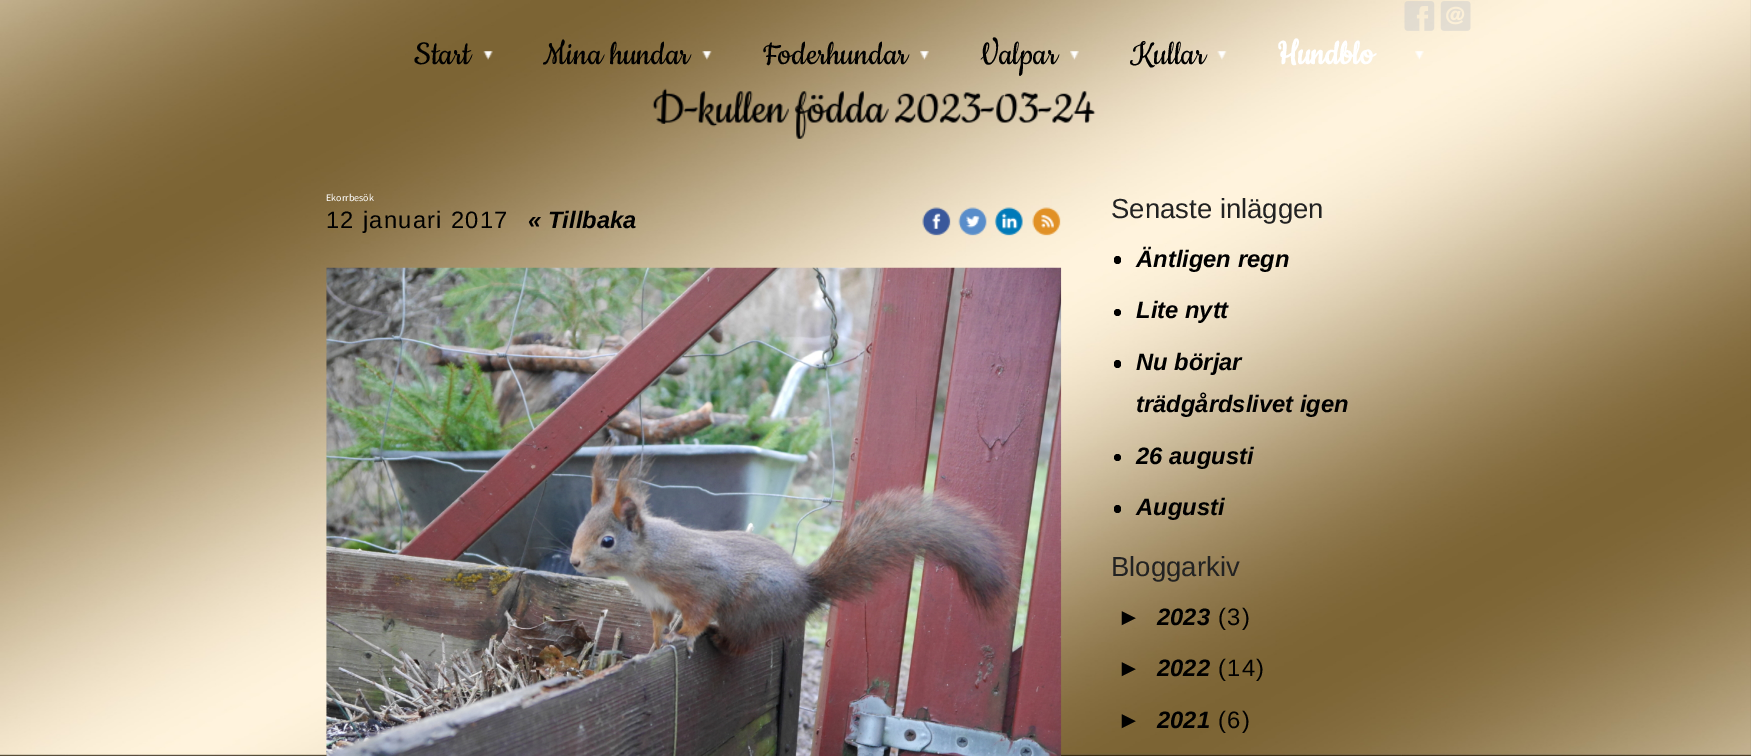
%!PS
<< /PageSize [1751 756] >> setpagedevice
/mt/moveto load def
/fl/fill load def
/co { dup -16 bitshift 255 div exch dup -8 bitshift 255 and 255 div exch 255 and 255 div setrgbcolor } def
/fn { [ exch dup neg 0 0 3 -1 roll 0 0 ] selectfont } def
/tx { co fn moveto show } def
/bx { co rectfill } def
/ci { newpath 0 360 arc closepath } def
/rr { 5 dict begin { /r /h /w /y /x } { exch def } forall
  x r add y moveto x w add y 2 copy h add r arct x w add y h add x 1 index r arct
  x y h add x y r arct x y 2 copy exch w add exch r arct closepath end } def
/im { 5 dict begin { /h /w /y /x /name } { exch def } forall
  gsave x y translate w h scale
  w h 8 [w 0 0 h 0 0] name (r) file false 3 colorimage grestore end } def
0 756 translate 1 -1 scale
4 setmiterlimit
0 0 1751 756 16#FFFFFF bx
(media/1.raw) 0 0 1751 756 im
(media/2.raw) 652 88 444 51 im
(media/3.raw) 1404 1 31 30 im
(media/4.raw) 1440 1 31 30 im
(media/5.raw) 483 51 10 9 im
(media/6.raw) 702 51 10 9 im
(media/7.raw) 920 51 9 9 im
(media/8.raw) 1070 51 9 9 im
(media/9.raw) 1217 51 10 9 im
(media/10.raw) 1415 51 9 9 im
(media/11.raw) 922 207 29 29 im
(media/12.raw) 958 207 29 29 im
(media/13.raw) 994 207 29 29 im
(media/14.raw) 1032 207 29 29 im
(media/15.raw) 326 267 736 489 im
16#000000 co
1114 256 7 8 3.5 rr fl
1117.5 312.5 3.5 ci fl
1114 360 7 8 3.5 rr fl
1117.5 457.5 3.5 ci fl
1114 505 7 8 3.5 rr fl
(Start) 414 64 /Cookie-Regular 37.5 16#000000 tx
(Mina hundar) 543 64 /Cookie-Regular 37.5 16#000000 tx
(Foderhundar) 763 64 /Cookie-Regular 37.5 16#000000 tx
(Valpar) 980 64 /Cookie-Regular 37.5 16#000000 tx
(Kullar) 1130 64 /Cookie-Regular 37.5 16#000000 tx
(Hundblo) 1277 64 /Cookie-Bold 37.5 16#FFFFFF tx
(Ekorrbesök) 326 201 /SourceSansPro-Regular 10 16#FFFFFF tx
/LiberationSans-Regular 23.75 fn
16#000000 co
326 228 mt 1.25 0 (12 januari 2017) ashow
(« Tillbaka) 528 228 /LiberationSans-BoldItalic 23.75 16#000000 tx
(Senaste inläggen) 1111 218 /LiberationSans-Regular 27.5 16#222222 tx
(Äntligen regn) 1136 267 /LiberationSans-BoldItalic 23.75 16#000000 tx
(Lite nytt) 1136 318 /LiberationSans-BoldItalic 23.75 16#000000 tx
(Nu börjar) 1136 370 /LiberationSans-BoldItalic 23.75 16#000000 tx
(trädgårdslivet igen) 1136 412 /LiberationSans-BoldItalic 23.75 16#000000 tx
(26 augusti) 1136 464 /LiberationSans-BoldItalic 23.75 16#000000 tx
(Augusti) 1136 515 /LiberationSans-BoldItalic 23.75 16#000000 tx
(Bloggarkiv) 1111 576 /LiberationSans-Regular 27.5 16#222222 tx
/LiberationSans-Regular 23.75 fn
16#000000 co
1117 625 mt 1.25 0 (►) ashow
(2023) 1157 625 /LiberationSans-BoldItalic 23.75 16#000000 tx
/LiberationSans-Regular 23.75 fn
1218 625 mt 1.25 0 (\(3\)) ashow
1117 676 mt 1.25 0 (►) ashow
(2022) 1157 676 /LiberationSans-BoldItalic 23.75 16#000000 tx
/LiberationSans-Regular 23.75 fn
1218 676 mt 1.25 0 (\(14\)) ashow
1117 728 mt 1.25 0 (►) ashow
(2021) 1157 728 /LiberationSans-BoldItalic 23.75 16#000000 tx
/LiberationSans-Regular 23.75 fn
1218 728 mt 1.25 0 (\(6\)) ashow
showpage
